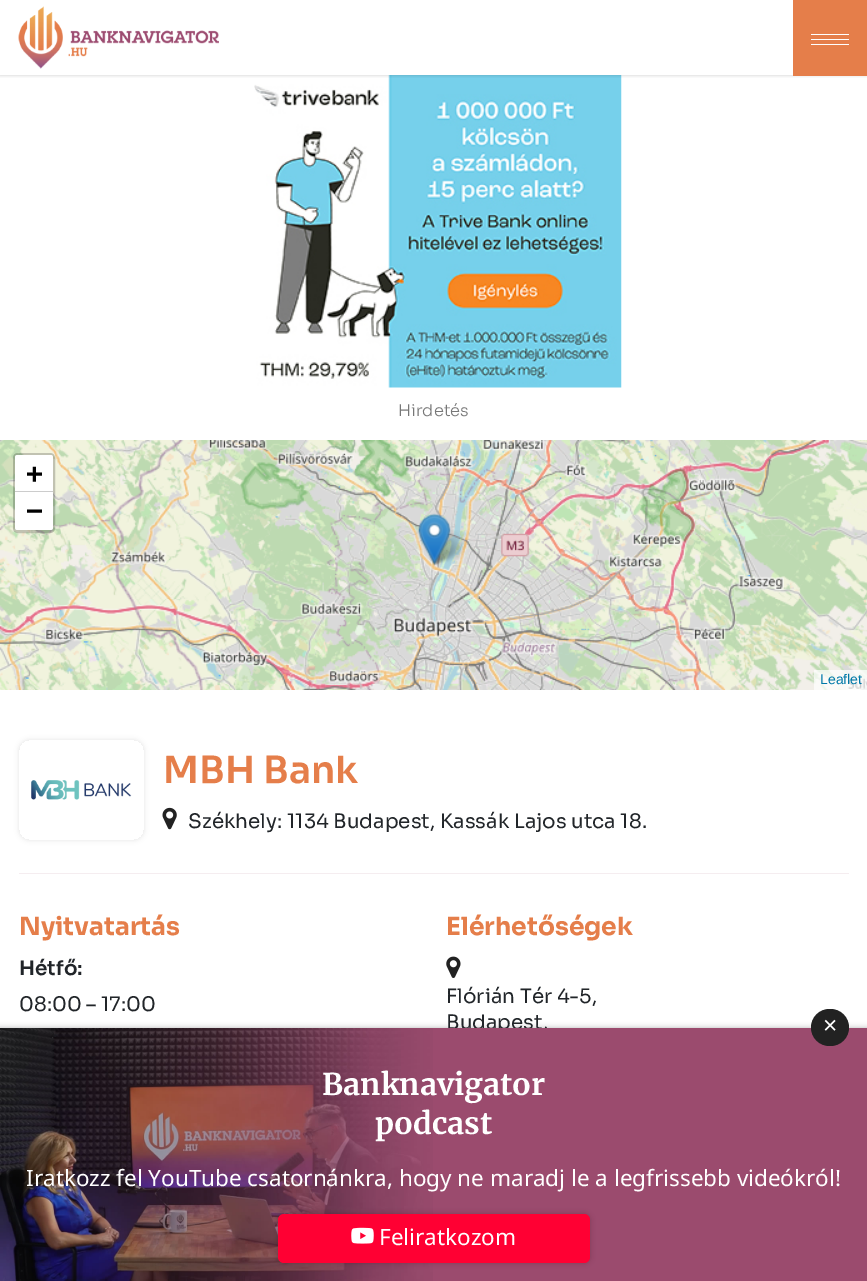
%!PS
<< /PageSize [867 1281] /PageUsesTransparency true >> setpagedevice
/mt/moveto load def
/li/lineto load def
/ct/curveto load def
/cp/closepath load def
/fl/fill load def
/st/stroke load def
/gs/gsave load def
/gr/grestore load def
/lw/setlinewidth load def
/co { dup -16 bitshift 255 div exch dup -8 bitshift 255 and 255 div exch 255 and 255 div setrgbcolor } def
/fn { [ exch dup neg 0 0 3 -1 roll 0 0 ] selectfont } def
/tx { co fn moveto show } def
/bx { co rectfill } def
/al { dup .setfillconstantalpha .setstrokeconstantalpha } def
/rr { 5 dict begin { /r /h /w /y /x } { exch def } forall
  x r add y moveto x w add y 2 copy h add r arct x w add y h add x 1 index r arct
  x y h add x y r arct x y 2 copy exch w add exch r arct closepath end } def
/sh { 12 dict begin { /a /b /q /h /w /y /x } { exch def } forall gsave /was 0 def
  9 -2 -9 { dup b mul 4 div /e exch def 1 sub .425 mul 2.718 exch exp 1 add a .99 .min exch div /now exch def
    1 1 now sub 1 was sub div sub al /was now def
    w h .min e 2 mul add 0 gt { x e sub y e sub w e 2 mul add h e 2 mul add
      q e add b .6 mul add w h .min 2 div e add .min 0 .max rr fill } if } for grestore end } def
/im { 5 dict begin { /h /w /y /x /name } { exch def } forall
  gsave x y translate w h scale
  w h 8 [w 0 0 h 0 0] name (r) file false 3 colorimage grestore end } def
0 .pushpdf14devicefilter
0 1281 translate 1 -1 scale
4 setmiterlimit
0 0 867 1281 16#FFFFFF bx
(media/2.raw) 254 75 368 313 im
gs
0 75 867 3 rectclip
16#000000 co
0 0 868 75 0 2 .2 sh
gr
(media/1.raw) 18 6 201 63 im
793 0 74 76 16#E57E4A bx
16#FFFFFF co
811 34 38 1 .5 rr fl
811 39 38 1 .5 rr fl
811 44 38 1 .5 rr fl
(media/3.raw) 0 440 61 159 im
(media/4.raw) 61 440 320 159 im
(media/5.raw) 381 440 320 159 im
(media/6.raw) 701 440 166 159 im
(media/7.raw) 0 599 61 91 im
(media/8.raw) 61 599 320 91 im
(media/9.raw) 381 599 320 91 im
(media/10.raw) 701 599 166 91 im
(media/12.raw) 430 530 37 36 im
(media/11.raw) 418 513 33 53 im
0.2 al
16#000000 co
3 lw
14.5 454.5 39 77 3.5 rr st
1 al
16#FFFFFF co
17.5 455 mt 50.5 455 li 52 455 53 456 53 457.5 ct 53 493 li 15 493 li 15 457.5 li 15 456 16 455 17.5 455 ct cp fl
15 491 38 1 16#CCCCCC bx
16#FFFFFF co
15 493 mt 53 493 li 53 527.5 li 53 529 52 530 50.5 530 ct 17.5 530 li 16 530 15 529 15 527.5 ct cp fl
0.7 al
814 670 53 20 16#FFFFFF bx
1 al
19 873 830 1 16#F5EDF0 bx
gs
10 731 mt 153 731 li 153 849 li 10 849 li cp 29 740 mt 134 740 li 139.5 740 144 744.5 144 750 ct 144 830 li 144 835.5 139.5 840 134 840 ct 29 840 li 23.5 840 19 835.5 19 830 ct 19 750 li 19 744.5 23.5 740 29 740 ct cp eoclip newpath
16#000000 co
19 740 125 100 10 2.5 .1 sh
gr
(media/13.raw) 31 780 101 20 im
(media/14.raw) 162 807 15 23 im
(media/15.raw) 446 956 15 22 im
16#000000 co
0 1028 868 253 0 3 .3 sh
(media/16.raw) 0 1028 433 253 im
(Hirdetés) 398 416 /Sora-Light 16.25 16#777777 tx
(+) 26 483 /DejaVuSansMono-Bold 28 16#000000 tx
(−) 26 520 /DejaVuSansMono-Bold 28 16#000000 tx
(Leaflet) 820 684 /LiberationSans-Regular 14 16#0078A8 tx
(MBH Bank) 163 783 /Sora-SemiBold 37.5 16#E57E4A tx
(Székhely: 1134 Budapest, Kassák Lajos utca 18.) 188 828 /Sora-Regular 20 16#212529 tx
(Nyitvatartás) 19 935 /Sora-Bold 25 16#E57E4A tx
(Hétfő:) 19 975 /Sora-SemiBold 20 16#212529 tx
(08:00 – 17:00) 19 1011 /Sora-Regular 20 16#212529 tx
(Elérhetőségek) 446 935 /Sora-Bold 25 16#E57E4A tx
(Flórián Tér 4-5,) 446 1003 /Sora-Regular 20 16#212529 tx
(Budapest,) 446 1029 /Sora-Regular 20 16#212529 tx
433 1028 434 253 16#9B4B6E bx
16#222222 co
811 1009 38 37 18.5 rr fl
(×) 823 1034 /NotoSans-Regular 25 16#FFFFFF tx
(Banknavigator) 322 1095 /Merriweather-Bold 30 16#FFFFFF tx
(podcast) 375 1134 /Merriweather-Bold 30 16#FFFFFF tx
(Iratkozz fel YouTube csatornánkra, hogy ne maradj le a legfrissebb videókról!) 26 1186 /NotoSans-Regular 22.5 16#FFFFFF tx
16#000000 co
278 1214 312 49 6 3 .2 sh
16#FF0033 co
278 1214 312 49 6 rr fl
(media/17.raw) 351 1227 23 17 im
(Feliratkozom) 379 1245 /NotoSans-Regular 22.5 16#FFFFFF tx
.poppdf14devicefilter showpage
